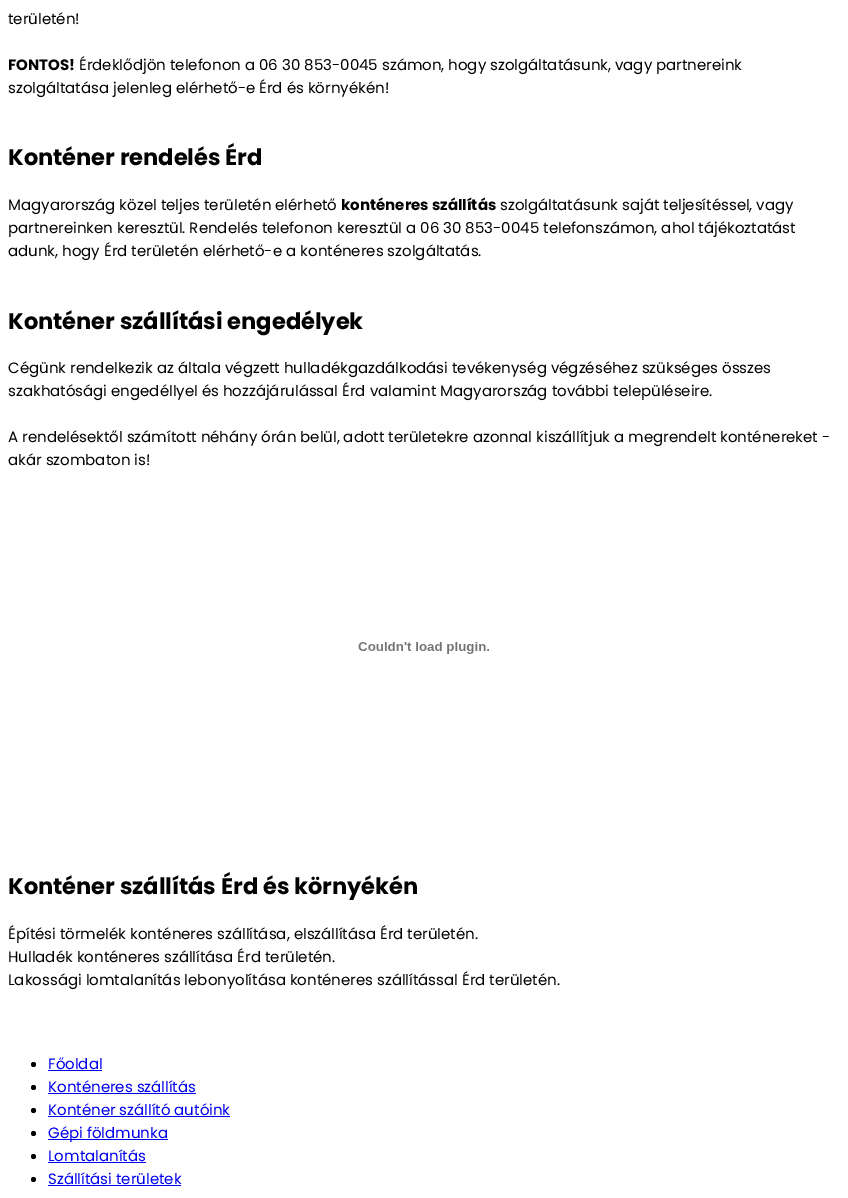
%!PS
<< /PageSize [848 1198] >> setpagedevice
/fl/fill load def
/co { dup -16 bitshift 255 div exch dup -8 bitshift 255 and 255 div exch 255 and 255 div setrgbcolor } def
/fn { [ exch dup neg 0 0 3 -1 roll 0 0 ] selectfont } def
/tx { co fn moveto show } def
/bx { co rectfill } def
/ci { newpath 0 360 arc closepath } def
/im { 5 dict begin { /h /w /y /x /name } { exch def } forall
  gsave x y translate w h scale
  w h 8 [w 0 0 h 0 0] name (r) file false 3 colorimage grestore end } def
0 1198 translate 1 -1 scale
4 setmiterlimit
0 0 848 1198 16#FFFFFF bx
(media/1.raw) 358 642 131 12 im
16#000000 co
33.5 1064.5 2.5 ci fl
48 1070 54 1 16#0000EE bx
16#000000 co
33.5 1087.5 2.5 ci fl
48 1093 148 1 16#0000EE bx
16#000000 co
33.5 1110.5 2.5 ci fl
48 1116 182 1 16#0000EE bx
16#000000 co
33.5 1133.5 2.5 ci fl
48 1139 120 1 16#0000EE bx
16#000000 co
33.5 1156.5 2.5 ci fl
48 1162 98 1 16#0000EE bx
16#000000 co
33.5 1179.5 2.5 ci fl
48 1185 133 1 16#0000EE bx
(területén!) 8 24 /Poppins-Regular 15 16#000000 tx
(FONTOS!) 8 70 /Poppins-Bold 15 16#000000 tx
(Érdeklődjön telefonon a 06 30 853-0045 számon, hogy szolgáltatásunk, vagy partnereink) 79 70 /Poppins-Regular 15 16#000000 tx
(szolgáltatása jelenleg elérhető-e Érd és környékén!) 8 93 /Poppins-Regular 15 16#000000 tx
(Konténer rendelés Érd) 8 165 /Poppins-Bold 22.5 16#000000 tx
(Magyarország közel teljes területén elérhető) 8 210 /Poppins-Regular 15 16#000000 tx
(konténeres szállítás) 341 210 /Poppins-Bold 15 16#000000 tx
(szolgáltatásunk saját teljesítéssel, vagy) 500 210 /Poppins-Regular 15 16#000000 tx
(partnereinken keresztül. Rendelés telefonon keresztül a 06 30 853-0045 telefonszámon, ahol tájékoztatást) 8 233 /Poppins-Regular 15 16#000000 tx
(adunk, hogy Érd területén elérhető-e a konténeres szolgáltatás.) 8 256 /Poppins-Regular 15 16#000000 tx
(Konténer szállítási engedélyek) 8 329 /Poppins-Bold 22.5 16#000000 tx
(Cégünk rendelkezik az általa végzett hulladékgazdálkodási tevékenység végzéséhez szükséges összes) 8 373 /Poppins-Regular 15 16#000000 tx
(szakhatósági engedéllyel és hozzájárulással Érd valamint Magyarország további településeire.) 8 396 /Poppins-Regular 15 16#000000 tx
(A rendelésektől számított néhány órán belül, adott területekre azonnal kiszállítjuk a megrendelt konténereket -) 8 442 /Poppins-Regular 15 16#000000 tx
(akár szombaton is!) 8 465 /Poppins-Regular 15 16#000000 tx
(Konténer szállítás Érd és környékén) 8 894 /Poppins-Bold 22.5 16#000000 tx
(Építési törmelék konténeres szállítása, elszállítása Érd területén.) 8 939 /Poppins-Regular 15 16#000000 tx
(Hulladék konténeres szállítása Érd területén.) 8 962 /Poppins-Regular 15 16#000000 tx
(Lakossági lomtalanítás lebonyolítása konténeres szállítással Érd területén.) 8 985 /Poppins-Regular 15 16#000000 tx
(Főoldal) 48 1069 /Poppins-Regular 15 16#0000EE tx
(Konténeres szállítás) 48 1092 /Poppins-Regular 15 16#0000EE tx
(Konténer szállító autóink) 48 1115 /Poppins-Regular 15 16#0000EE tx
(Gépi földmunka) 48 1138 /Poppins-Regular 15 16#0000EE tx
(Lomtalanítás) 48 1161 /Poppins-Regular 15 16#0000EE tx
(Szállítási területek) 48 1184 /Poppins-Regular 15 16#0000EE tx
showpage
